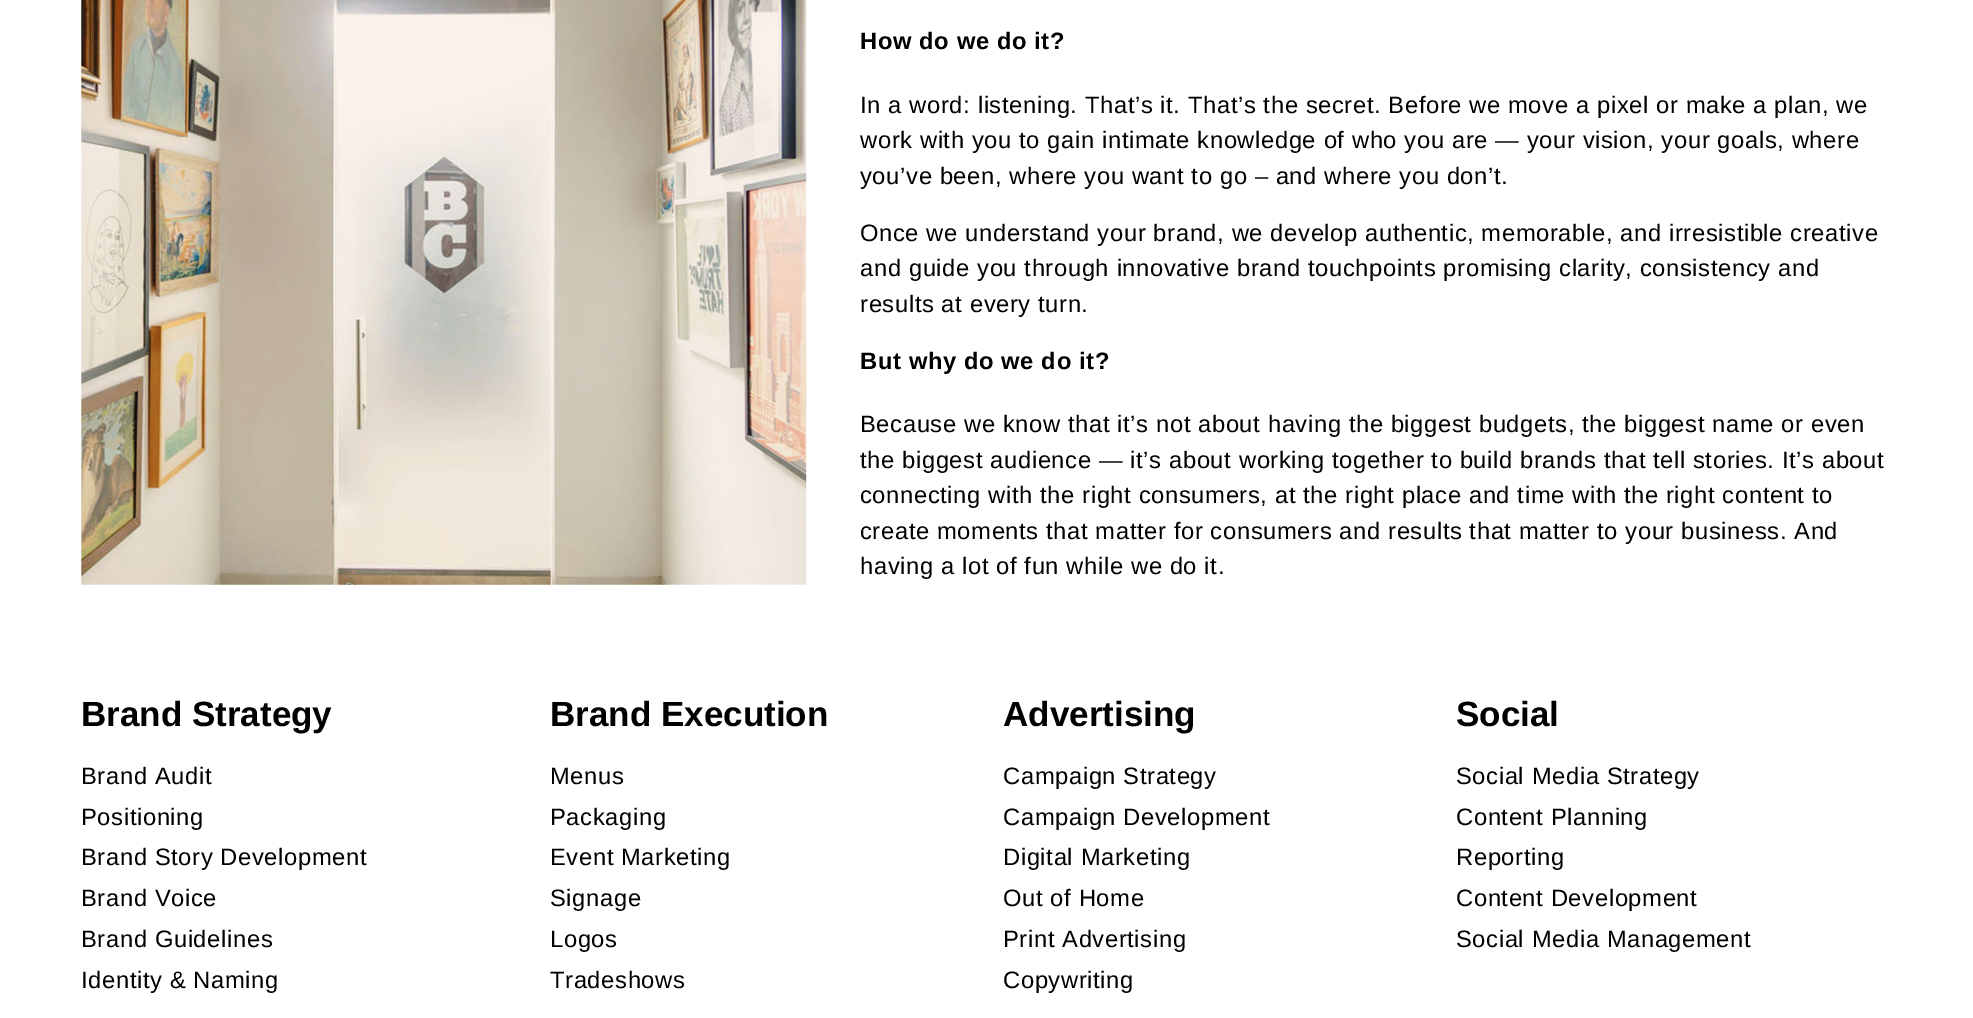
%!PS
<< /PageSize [1973 1018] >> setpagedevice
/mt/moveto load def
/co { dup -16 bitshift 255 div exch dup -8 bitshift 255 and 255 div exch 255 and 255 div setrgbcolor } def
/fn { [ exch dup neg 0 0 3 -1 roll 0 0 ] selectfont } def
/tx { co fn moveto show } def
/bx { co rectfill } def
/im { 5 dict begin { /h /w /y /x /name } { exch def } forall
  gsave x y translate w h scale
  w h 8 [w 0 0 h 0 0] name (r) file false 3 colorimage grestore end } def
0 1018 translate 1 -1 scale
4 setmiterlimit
0 0 1973 1018 16#FFFFFF bx
(media/1.raw) 81 0 726 585 im
/LiberationSans-Bold 23.75 fn
16#000000 co
860 49 mt .62 0 (How do we do it?) ashow
/LiberationSans-Regular 23.75 fn
860 113 mt .62 0 (In a word: listening. That’s it. That’s the secret. Before we move a pixel or make a plan, we) ashow
860 148 mt .62 0 (work with you to gain intimate knowledge of who you are — your vision, your goals, where) ashow
860 184 mt .62 0 (you’ve been, where you want to go – and where you don’t.) ashow
860 241 mt .62 0 (Once we understand your brand, we develop authentic, memorable, and irresistible creative) ashow
860 276 mt .62 0 (and guide you through innovative brand touchpoints promising clarity, consistency and) ashow
860 312 mt .62 0 (results at every turn.) ashow
/LiberationSans-Bold 23.75 fn
860 369 mt .62 0 (But why do we do it?) ashow
/LiberationSans-Regular 23.75 fn
860 432 mt .62 0 (Because we know that it’s not about having the biggest budgets, the biggest name or even) ashow
860 468 mt .62 0 (the biggest audience — it’s about working together to build brands that tell stories. It’s about) ashow
860 503 mt .62 0 (connecting with the right consumers, at the right place and time with the right content to) ashow
860 539 mt .62 0 (create moments that matter for consumers and results that matter to your business. And) ashow
860 574 mt .62 0 (having a lot of fun while we do it.) ashow
(Brand Strategy) 81 726 /LiberationSans-Bold 35 16#000000 tx
/LiberationSans-Regular 23.75 fn
81 784 mt .62 0 (Brand Audit) ashow
81 825 mt .62 0 (Positioning) ashow
81 865 mt .62 0 (Brand Story Development) ashow
81 906 mt .62 0 (Brand Voice) ashow
81 947 mt .62 0 (Brand Guidelines) ashow
81 988 mt .62 0 (Identity & Naming) ashow
(Brand Execution) 550 726 /LiberationSans-Bold 35 16#000000 tx
/LiberationSans-Regular 23.75 fn
550 784 mt .62 0 (Menus) ashow
550 825 mt .62 0 (Packaging) ashow
550 865 mt .62 0 (Event Marketing) ashow
550 906 mt .62 0 (Signage) ashow
550 947 mt .62 0 (Logos) ashow
550 988 mt .62 0 (Tradeshows) ashow
(Advertising) 1003 726 /LiberationSans-Bold 35 16#000000 tx
/LiberationSans-Regular 23.75 fn
1003 784 mt .62 0 (Campaign Strategy) ashow
1003 825 mt .62 0 (Campaign Development) ashow
1003 865 mt .62 0 (Digital Marketing) ashow
1003 906 mt .62 0 (Out of Home) ashow
1003 947 mt .62 0 (Print Advertising) ashow
1003 988 mt .62 0 (Copywriting) ashow
(Social) 1456 726 /LiberationSans-Bold 35 16#000000 tx
/LiberationSans-Regular 23.75 fn
1456 784 mt .62 0 (Social Media Strategy) ashow
1456 825 mt .62 0 (Content Planning) ashow
1456 865 mt .62 0 (Reporting) ashow
1456 906 mt .62 0 (Content Development) ashow
1456 947 mt .62 0 (Social Media Management) ashow
showpage
